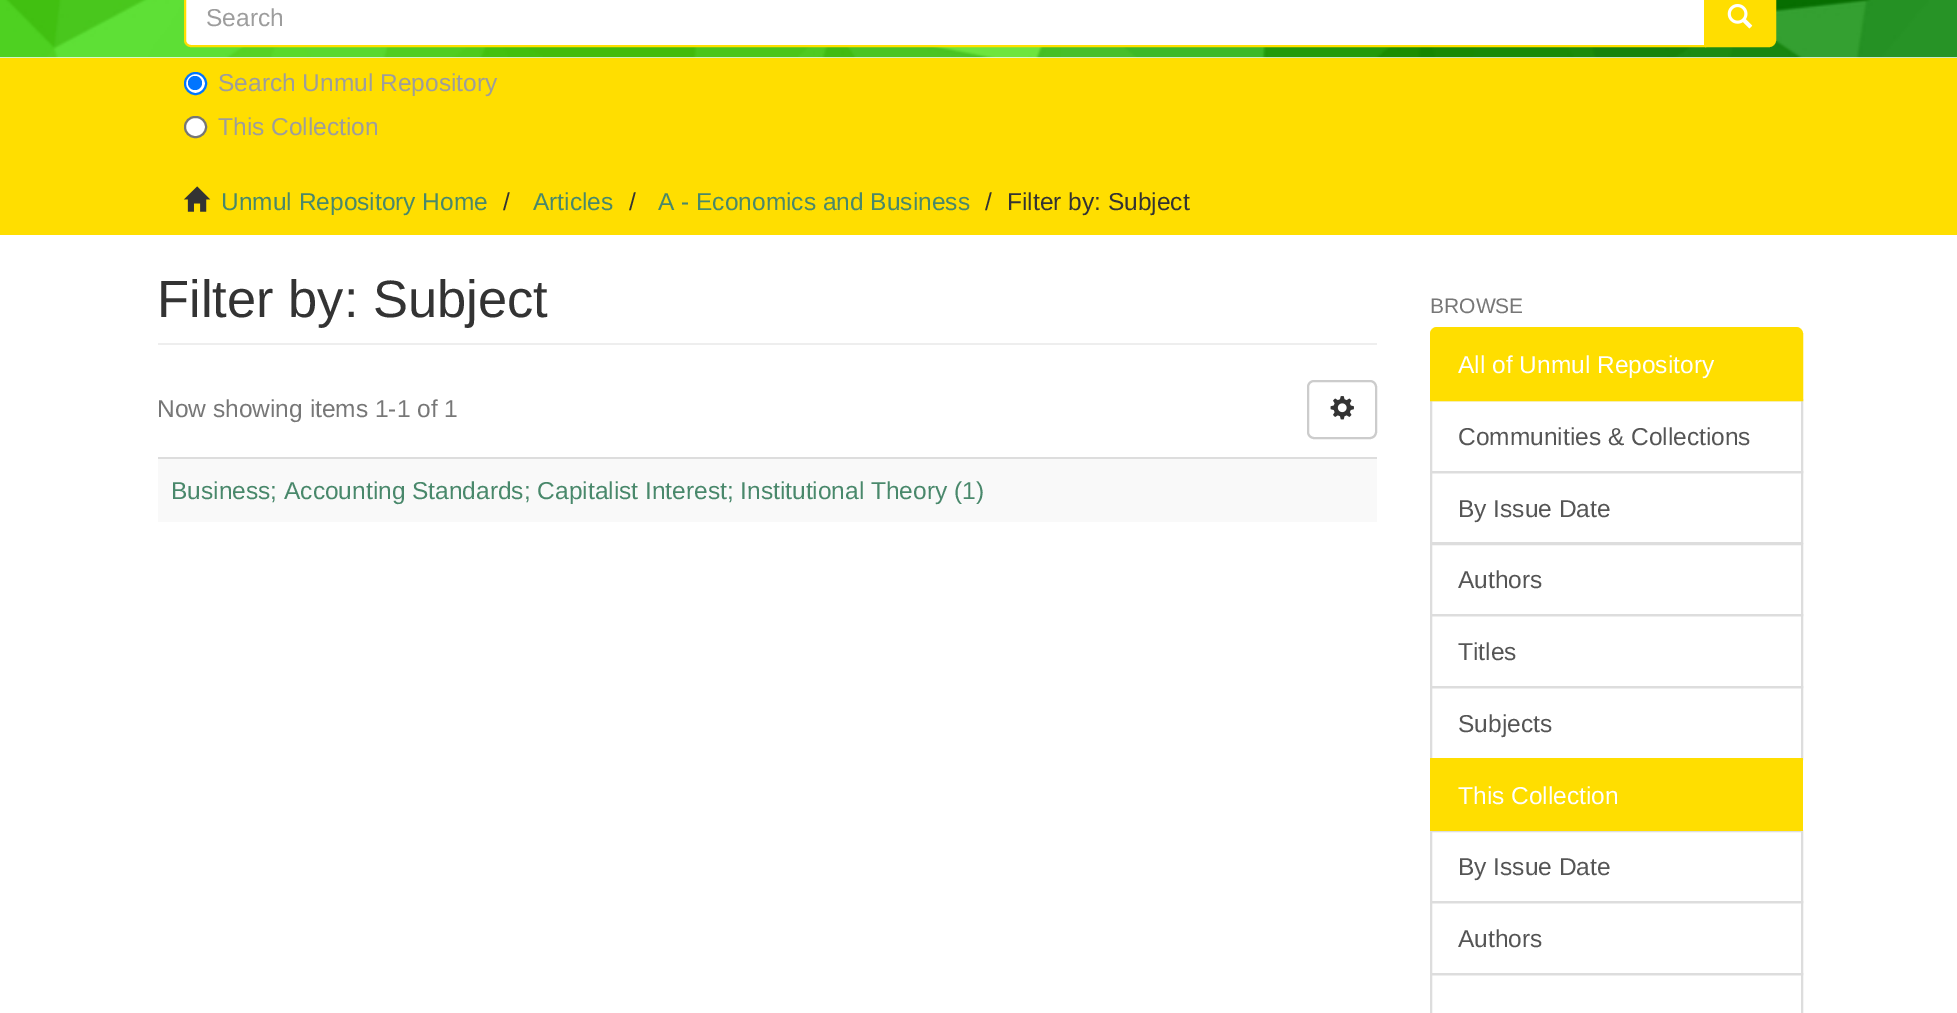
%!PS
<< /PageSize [1957 1013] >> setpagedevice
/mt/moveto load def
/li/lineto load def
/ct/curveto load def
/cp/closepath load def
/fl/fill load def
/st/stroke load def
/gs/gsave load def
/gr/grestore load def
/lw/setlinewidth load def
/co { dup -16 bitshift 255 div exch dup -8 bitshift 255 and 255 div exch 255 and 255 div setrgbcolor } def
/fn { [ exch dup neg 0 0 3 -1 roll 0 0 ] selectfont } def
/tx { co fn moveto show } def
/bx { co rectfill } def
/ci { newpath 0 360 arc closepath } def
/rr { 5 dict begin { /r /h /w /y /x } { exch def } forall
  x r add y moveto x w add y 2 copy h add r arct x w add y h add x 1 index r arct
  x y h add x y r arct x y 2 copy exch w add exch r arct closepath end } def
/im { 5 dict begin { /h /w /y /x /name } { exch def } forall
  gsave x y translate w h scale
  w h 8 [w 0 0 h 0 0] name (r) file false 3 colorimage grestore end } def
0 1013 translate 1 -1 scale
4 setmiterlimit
0 0 1957 1013 16#FFFFFF bx
(media/1.raw) 0 0 1957 58 im
16#FFDE00 co
1706 -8 mt 1769 -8 li 1772.5 -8 1775 -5.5 1775 -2 ct 1775 40 li 1775 43.5 1772.5 46 1769 46 ct 1706 46 li cp gs fl gr
2 lw
st
16#FFFFFF co
191 -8 mt 1705 -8 li 1705 46 li 191 46 li 187.5 46 185 43.5 185 40 ct 185 -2 li 185 -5.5 187.5 -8 191 -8 ct cp gs fl gr
16#FFDE00 co
st
(media/2.raw) 1727 4 26 25 im
0 58 1957 177 16#FFDE00 bx
16#FFFFFF co
195.5 83.5 10.5 ci gs fl gr
16#0075FF co
st
195 83 7 ci fl
16#FFFFFF co
185 117 21 20 10 rr gs fl gr
16#767676 co
st
(media/3.raw) 183 186 28 26 im
158 343 1219 2 16#EEEEEE bx
16#CCCCCC co
1308 381 68 57 6 rr st
(media/4.raw) 1330 396 24 24 im
158 459 1219 63 16#F9F9F9 bx
158 457 1219 2 16#DDDDDD bx
1431 400 371 72 rectstroke
16#FFDE00 co
1437 328 mt 1796 328 li 1799.5 328 1802 330.5 1802 334 ct 1802 400 li 1431 400 li 1431 334 li 1431 330.5 1433.5 328 1437 328 ct cp gs fl gr
st
16#DDDDDD co
1431 472 371 71 rectstroke
1431 544 371 71 rectstroke
1431 615 371 72 rectstroke
1431 687 371 72 rectstroke
1431 831 371 71 rectstroke
1430 758 373 73 16#FFDE00 bx
16#DDDDDD co
1431 902 371 72 rectstroke
1431 974 371 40 rectstroke
(Search) 206 26 /LiberationSans-Regular 24.5 16#9D9D9D tx
(Search Unmul Repository) 218 91 /LiberationSans-Regular 24.5 16#9D9D9D tx
(This Collection) 218 135 /LiberationSans-Regular 24.5 16#9D9D9D tx
(Unmul Repository Home) 221 210 /LiberationSans-Regular 24.5 16#49886B tx
(/) 503 210 /LiberationSans-Regular 24.5 16#333333 tx
(Articles) 533 210 /LiberationSans-Regular 24.5 16#49886B tx
(/) 629 210 /LiberationSans-Regular 24.5 16#333333 tx
(A - Economics and Business) 658 210 /LiberationSans-Regular 24.5 16#49886B tx
(/) 985 210 /LiberationSans-Regular 24.5 16#333333 tx
(Filter by: Subject) 1007 210 /LiberationSans-Regular 24.5 16#333333 tx
(Filter by: Subject) 157 317 /LiberationSans-Regular 52.5 16#333333 tx
(Now showing items 1-1 of 1) 157 417 /LiberationSans-Regular 24.5 16#777777 tx
(Business; Accounting Standards; Capitalist Interest; Institutional Theory \(1\)) 171 499 /LiberationSans-Regular 24.5 16#49886B tx
(BROWSE) 1430 313 /LiberationSans-Regular 21 16#777777 tx
(All of Unmul Repository) 1458 373 /LiberationSans-Regular 24.5 16#FFFFFF tx
(Communities & Collections) 1458 445 /LiberationSans-Regular 24.5 16#555555 tx
(By Issue Date) 1458 517 /LiberationSans-Regular 24.5 16#555555 tx
(Authors) 1458 588 /LiberationSans-Regular 24.5 16#555555 tx
(Titles) 1458 660 /LiberationSans-Regular 24.5 16#555555 tx
(Subjects) 1458 732 /LiberationSans-Regular 24.5 16#555555 tx
(This Collection) 1458 804 /LiberationSans-Regular 24.5 16#FFFFFF tx
(By Issue Date) 1458 875 /LiberationSans-Regular 24.5 16#555555 tx
(Authors) 1458 947 /LiberationSans-Regular 24.5 16#555555 tx
showpage
